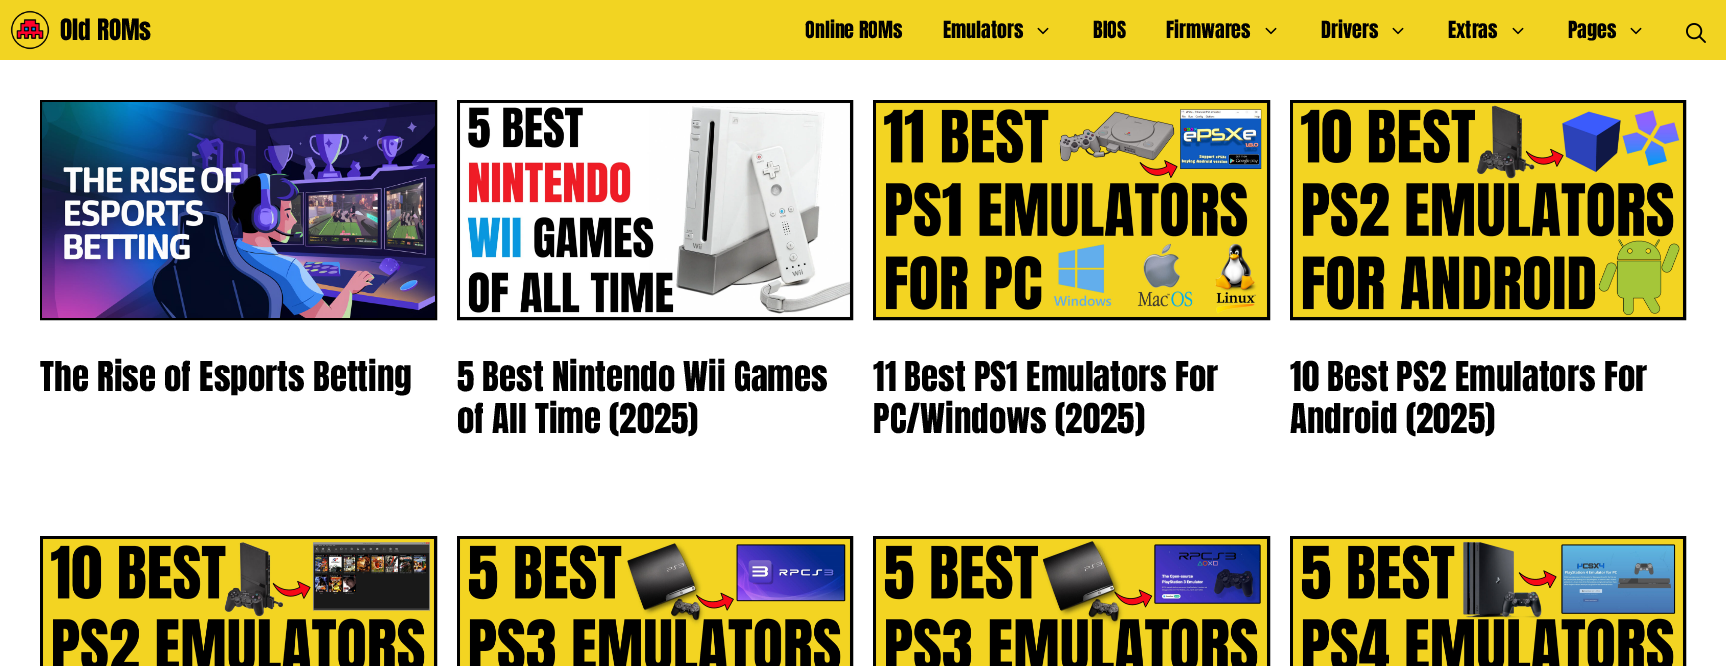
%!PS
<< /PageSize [1726 666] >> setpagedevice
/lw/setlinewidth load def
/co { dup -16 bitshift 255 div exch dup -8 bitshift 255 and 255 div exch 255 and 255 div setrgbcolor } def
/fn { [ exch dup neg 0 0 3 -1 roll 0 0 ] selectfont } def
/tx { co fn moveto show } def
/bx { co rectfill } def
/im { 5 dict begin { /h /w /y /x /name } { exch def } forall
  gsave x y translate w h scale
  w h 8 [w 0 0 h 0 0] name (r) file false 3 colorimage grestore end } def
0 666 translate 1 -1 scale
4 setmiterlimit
0 0 1726 666 16#FFFFFF bx
0 0 1726 60 16#F2D422 bx
(media/1.raw) 10 10 40 40 im
(media/2.raw) 1037 27 12 8 im
(media/2.raw) 1265 27 12 8 im
(media/2.raw) 1392 27 12 8 im
(media/2.raw) 1512 27 12 8 im
(media/2.raw) 1630 27 12 8 im
(media/3.raw) 1686 23 20 20 im
16#000000 co
2 lw
41 101 395 218 rectstroke
(media/4.raw) 42 102 393 216 im
458 101 394 218 rectstroke
(media/5.raw) 459 102 392 216 im
874 101 395 218 rectstroke
(media/6.raw) 875 102 393 216 im
1291 101 394 218 rectstroke
(media/7.raw) 1292 102 392 216 im
41 537 395 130 rectstroke
(media/8.raw) 42 538 393 128 im
458 537 394 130 rectstroke
(media/9.raw) 459 538 392 128 im
874 537 395 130 rectstroke
(media/10.raw) 875 538 393 128 im
1291 537 394 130 rectstroke
(media/11.raw) 1292 538 392 128 im
(Old ROMs) 60 40 /Anton-Regular 25 16#000000 tx
(Online ROMs) 805 38 /Anton-Regular 20 16#000000 tx
(Emulators) 943 38 /Anton-Regular 20 16#000000 tx
(BIOS) 1093 38 /Anton-Regular 20 16#000000 tx
(Firmwares) 1166 38 /Anton-Regular 20 16#000000 tx
(Drivers) 1321 38 /Anton-Regular 20 16#000000 tx
(Extras) 1448 38 /Anton-Regular 20 16#000000 tx
(Pages) 1568 38 /Anton-Regular 20 16#000000 tx
(The Rise of Esports Betting) 40 391 /Anton-Regular 35 16#000000 tx
(5 Best Nintendo Wii Games) 457 391 /Anton-Regular 35 16#000000 tx
(of All Time \(2025\)) 457 433 /Anton-Regular 35 16#000000 tx
(11 Best PS1 Emulators For) 873 391 /Anton-Regular 35 16#000000 tx
(PC/Windows \(2025\)) 873 433 /Anton-Regular 35 16#000000 tx
(10 Best PS2 Emulators For) 1290 391 /Anton-Regular 35 16#000000 tx
(Android \(2025\)) 1290 433 /Anton-Regular 35 16#000000 tx
showpage
